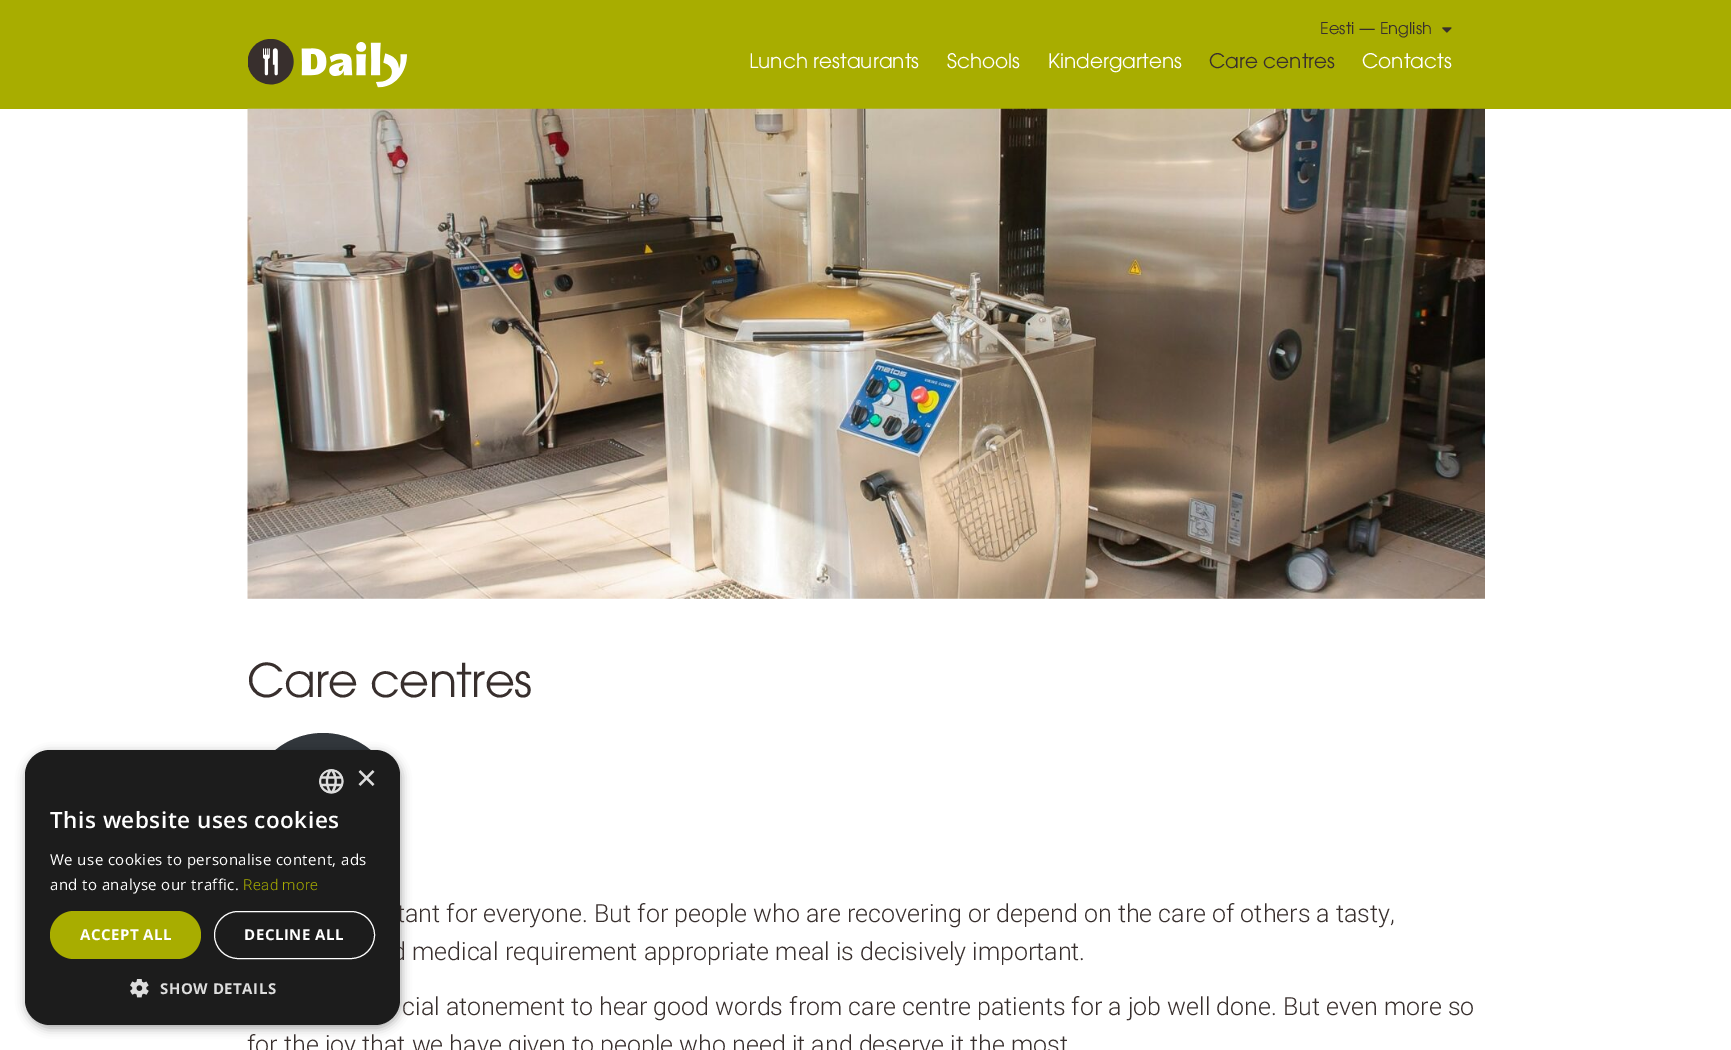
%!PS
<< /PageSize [1731 1050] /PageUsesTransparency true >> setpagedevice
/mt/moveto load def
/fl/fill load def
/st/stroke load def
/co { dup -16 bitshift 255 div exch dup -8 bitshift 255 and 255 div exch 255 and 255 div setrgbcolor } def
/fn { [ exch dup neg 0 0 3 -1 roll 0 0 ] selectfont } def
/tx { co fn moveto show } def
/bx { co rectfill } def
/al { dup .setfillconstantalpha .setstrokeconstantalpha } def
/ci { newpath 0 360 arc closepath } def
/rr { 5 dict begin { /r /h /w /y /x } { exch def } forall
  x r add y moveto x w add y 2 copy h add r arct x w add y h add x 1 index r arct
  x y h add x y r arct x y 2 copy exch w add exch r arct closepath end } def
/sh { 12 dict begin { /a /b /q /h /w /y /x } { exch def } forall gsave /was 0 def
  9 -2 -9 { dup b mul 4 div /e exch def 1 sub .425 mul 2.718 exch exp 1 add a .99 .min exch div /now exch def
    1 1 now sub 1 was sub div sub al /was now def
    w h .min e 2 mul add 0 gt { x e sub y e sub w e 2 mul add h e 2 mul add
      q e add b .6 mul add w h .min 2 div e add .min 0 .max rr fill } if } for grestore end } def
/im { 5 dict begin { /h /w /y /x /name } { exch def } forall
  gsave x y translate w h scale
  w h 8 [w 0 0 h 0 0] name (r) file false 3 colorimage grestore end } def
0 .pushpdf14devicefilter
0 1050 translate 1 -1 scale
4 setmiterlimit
0 0 1731 1050 16#FFFFFF bx
0 0 1731 109 16#A8AD00 bx
(media/1.raw) 248 39 159 49 im
(media/2.raw) 1442 27 10 6 im
16#32373C co
323 808 75 ci fl
16#000000 co
26 753 375 275 25 5 .35 sh
(media/5.raw) 247 108 1238 491 im
(Eesti — English) 1320 34 /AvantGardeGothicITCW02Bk-Regular 16.25 16#382F2D tx
(Lunch restaurants) 749 68 /AvantGardeGothicITCW02Bk-Regular 20 16#FFFFFF tx
(Schools) 947 68 /AvantGardeGothicITCW02Bk-Regular 20 16#FFFFFF tx
(Kindergartens) 1048 68 /AvantGardeGothicITCW02Bk-Regular 20 16#FFFFFF tx
(Care centres) 1209 68 /AvantGardeGothicITCW02Bk-Regular 20 16#382F2D tx
(Contacts) 1362 68 /AvantGardeGothicITCW02Bk-Regular 20 16#FFFFFF tx
/AvantGardeGothicITCW02Bk-Regular 46.25 fn
16#382F2D co
247 697 mt -.6 0 (Care centres) ashow
(tant for everyone. But for people who are recovering or depend on the care of others a tasty,) 397 922 /Roboto-Light 25 16#382F2D tx
(d medical requirement appropriate meal is decisively important.) 392 960 /Roboto-Light 25 16#382F2D tx
16#1C1C1C co
25 750 375 275 25 rr fl
(×) 356 790 /LiberationSans-Regular 36 16#DDDDDD tx
(media/4.raw) 130 979 19 19 im
/OpenSans-Bold 15 fn
160 994 mt .5 0 (SHOW DETAILS) ashow
(media/3.raw) 319 769 25 25 im
16#FFFFFF co
214.5 911.5 160 47 23.5 rr st
244 940 mt .5 0 (DECLINE ALL) ashow
16#A8AD00 co
50 911 151 48 24 rr fl
16#FFFFFF co
80 940 mt .5 0 (ACCEPT ALL) ashow
/Roboto-Light 15 fn
16#A8AD00 co
243 890 mt .4 0 (Read more) ashow
/OpenSans-Regular 15 fn
16#FFFFFF co
50 890 mt .4 0 (and to analyse our traffic.) ashow
50 865 mt .4 0 (We use cookies to personalise content, ads) ashow
/OpenSans-SemiBold 22.5 fn
50 828 mt .5 0 (This website uses cookies) ashow
(cial atonement to hear good words from care centre patients for a job well done. But even more so) 402 1015 /Roboto-Light 25 16#382F2D tx
(for the joy that we have given to people who need it and deserve it the most) 247 1053 /Roboto-Light 25 16#382F2D tx
.poppdf14devicefilter showpage
